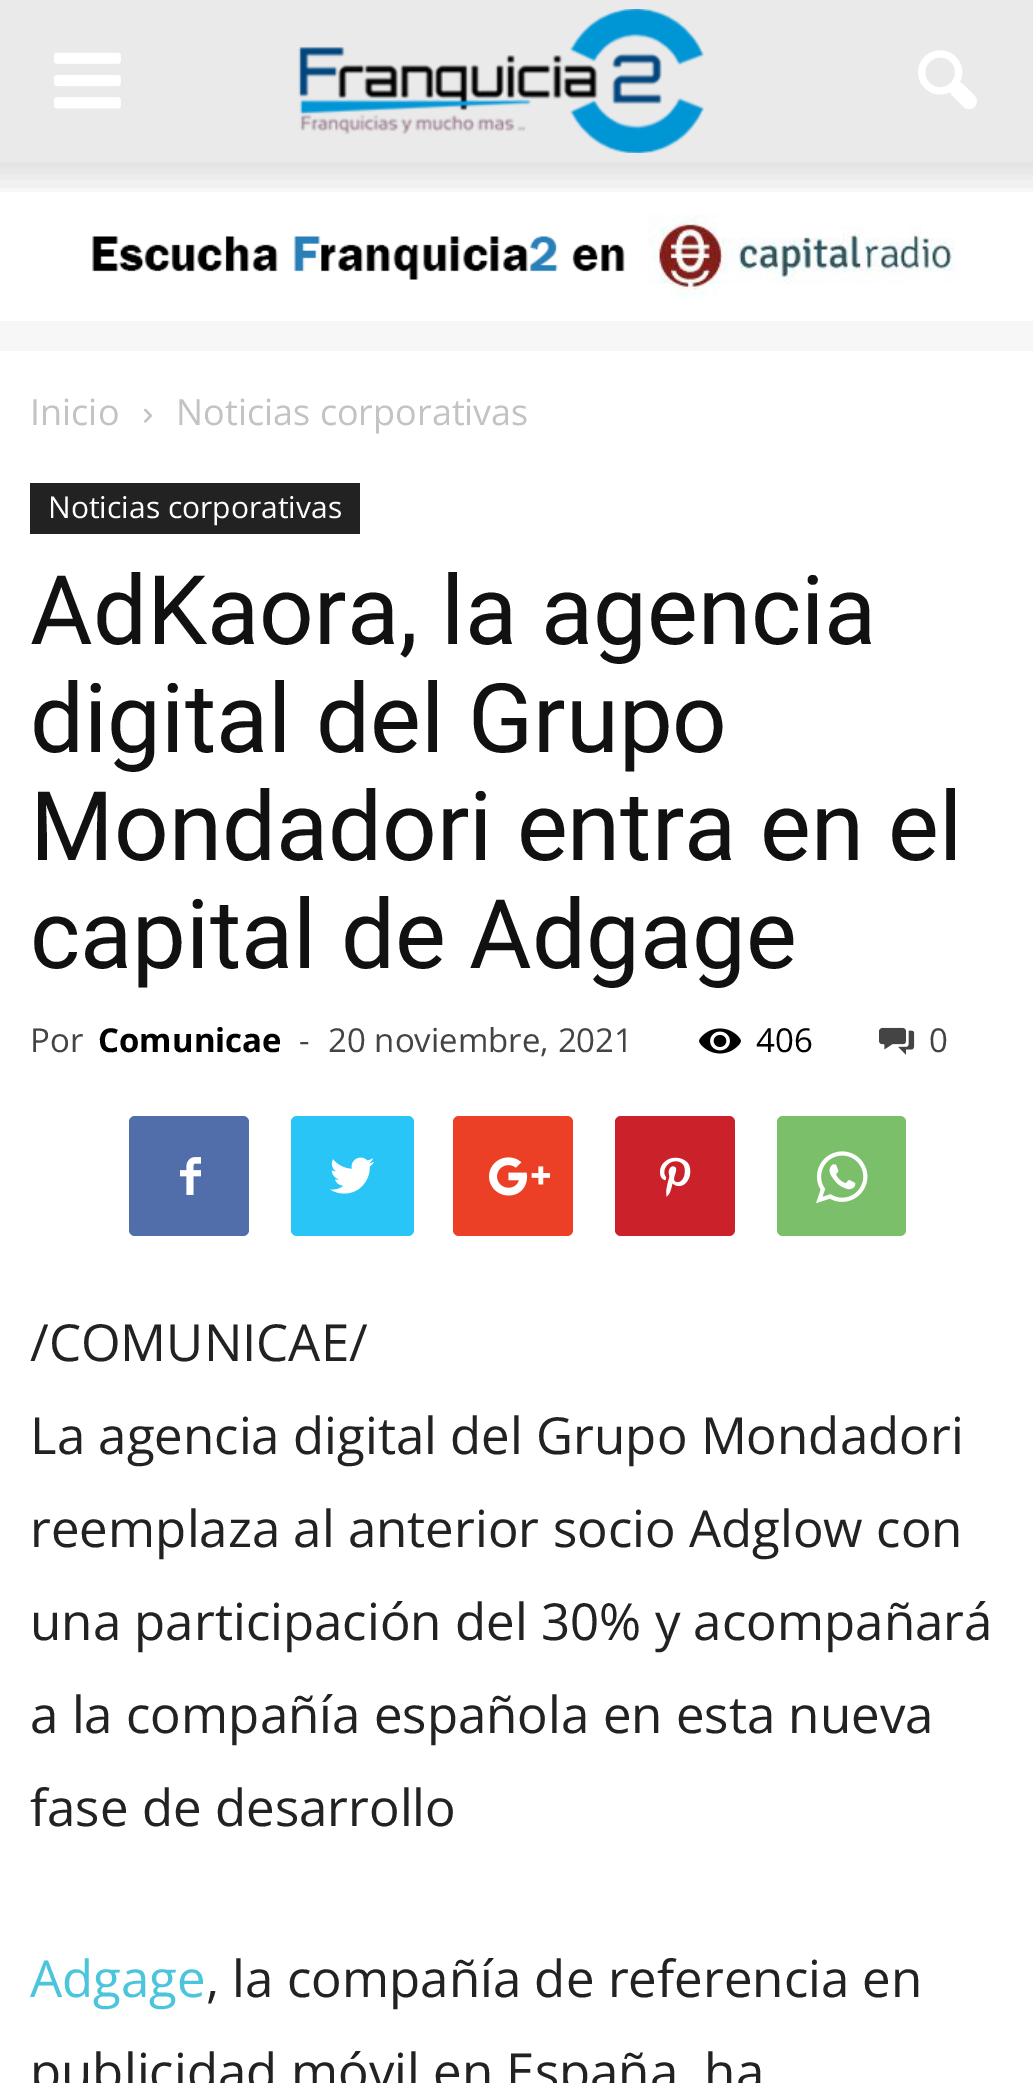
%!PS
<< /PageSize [1033 2083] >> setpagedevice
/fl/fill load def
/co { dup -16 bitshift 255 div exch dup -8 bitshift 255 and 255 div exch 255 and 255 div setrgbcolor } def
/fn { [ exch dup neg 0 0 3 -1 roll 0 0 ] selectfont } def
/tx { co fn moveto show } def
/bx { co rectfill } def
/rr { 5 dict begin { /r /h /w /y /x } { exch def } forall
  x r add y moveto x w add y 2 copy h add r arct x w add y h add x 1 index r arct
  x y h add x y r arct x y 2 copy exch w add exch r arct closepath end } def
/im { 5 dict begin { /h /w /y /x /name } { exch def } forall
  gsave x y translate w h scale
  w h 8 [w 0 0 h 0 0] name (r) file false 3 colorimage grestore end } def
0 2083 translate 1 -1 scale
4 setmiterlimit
0 0 1033 2083 16#FFFFFF bx
0 0 1033 162 16#EAEAEA bx
(media/1.raw) 54 52 67 57 im
(media/2.raw) 298 9 406 144 im
(media/3.raw) 918 50 59 59 im
0 162 1033 189 16#F7F7F7 bx
(media/4.raw) 0 162 1033 26 im
(media/5.raw) 0 192 1033 129 im
(media/6.raw) 144 408 9 15 im
30 483 330 51 16#222222 bx
(media/7.raw) 699 1028 42 26 im
(media/8.raw) 879 1027 36 28 im
16#516EAB co
129 1116 120 120 6 rr fl
(media/9.raw) 180 1157 21 38 im
16#29C5F6 co
291 1116 123 120 6 rr fl
(media/10.raw) 330 1157 45 37 im
16#EB4026 co
453 1116 120 120 6 rr fl
(media/11.raw) 489 1157 62 39 im
16#CA212A co
615 1116 120 120 6 rr fl
(media/12.raw) 660 1157 31 40 im
16#7BBF6A co
777 1116 129 120 6 rr fl
(media/13.raw) 816 1151 52 53 im
(Inicio) 30 425 /OpenSans-Regular 36 16#C3C3C3 tx
(Noticias corporativas) 176 425 /OpenSans-Regular 36 16#C3C3C3 tx
(Noticias corporativas) 48 518 /OpenSans-Regular 30 16#FFFFFF tx
(AdKaora, la agencia) 30 644 /Roboto-Regular 96 16#111111 tx
(digital del Grupo) 30 752 /Roboto-Regular 96 16#111111 tx
(Mondadori entra en el) 30 860 /Roboto-Regular 96 16#111111 tx
(capital de Adgage) 30 968 /Roboto-Regular 96 16#111111 tx
(Por) 30 1052 /OpenSans-Regular 33 16#444444 tx
(Comunicae) 98 1052 /OpenSans-Bold 33 16#000000 tx
(-) 299 1052 /OpenSans-Regular 33 16#444444 tx
(20 noviembre, 2021) 328 1052 /OpenSans-Regular 33 16#444444 tx
(406) 756 1052 /OpenSans-Regular 33 16#000000 tx
(0) 929 1052 /OpenSans-Regular 33 16#444444 tx
(/COMUNICAE/) 30 1361 /OpenSans-Regular 51 16#222222 tx
(La agencia digital del Grupo Mondadori) 30 1454 /OpenSans-Regular 51 16#222222 tx
(reemplaza al anterior socio Adglow con) 30 1547 /OpenSans-Regular 51 16#222222 tx
(una participación del 30% y acompañará) 30 1640 /OpenSans-Regular 51 16#222222 tx
(a la compañía española en esta nueva) 30 1733 /OpenSans-Regular 51 16#222222 tx
(fase de desarrollo) 30 1826 /OpenSans-Regular 51 16#222222 tx
(Adgage) 30 1997 /OpenSans-Regular 51 16#4AC5DB tx
(, la compañía de referencia en) 206 1997 /OpenSans-Regular 51 16#222222 tx
(publicidad móvil en España, ha) 30 2090 /OpenSans-Regular 51 16#222222 tx
showpage
